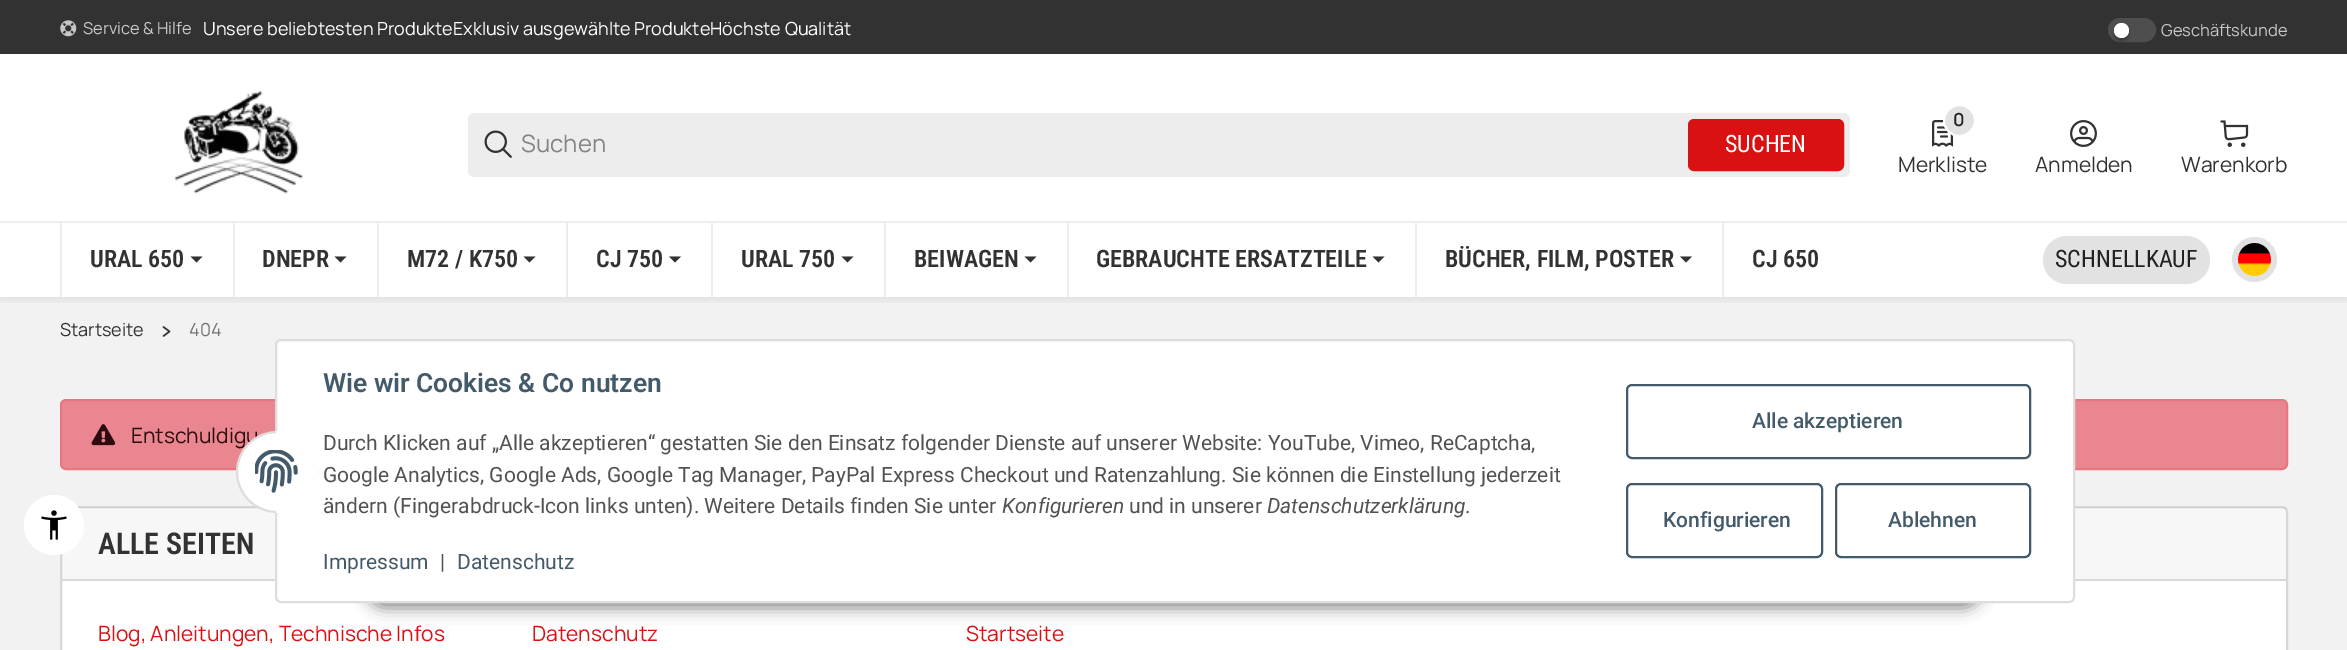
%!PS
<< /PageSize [2347 650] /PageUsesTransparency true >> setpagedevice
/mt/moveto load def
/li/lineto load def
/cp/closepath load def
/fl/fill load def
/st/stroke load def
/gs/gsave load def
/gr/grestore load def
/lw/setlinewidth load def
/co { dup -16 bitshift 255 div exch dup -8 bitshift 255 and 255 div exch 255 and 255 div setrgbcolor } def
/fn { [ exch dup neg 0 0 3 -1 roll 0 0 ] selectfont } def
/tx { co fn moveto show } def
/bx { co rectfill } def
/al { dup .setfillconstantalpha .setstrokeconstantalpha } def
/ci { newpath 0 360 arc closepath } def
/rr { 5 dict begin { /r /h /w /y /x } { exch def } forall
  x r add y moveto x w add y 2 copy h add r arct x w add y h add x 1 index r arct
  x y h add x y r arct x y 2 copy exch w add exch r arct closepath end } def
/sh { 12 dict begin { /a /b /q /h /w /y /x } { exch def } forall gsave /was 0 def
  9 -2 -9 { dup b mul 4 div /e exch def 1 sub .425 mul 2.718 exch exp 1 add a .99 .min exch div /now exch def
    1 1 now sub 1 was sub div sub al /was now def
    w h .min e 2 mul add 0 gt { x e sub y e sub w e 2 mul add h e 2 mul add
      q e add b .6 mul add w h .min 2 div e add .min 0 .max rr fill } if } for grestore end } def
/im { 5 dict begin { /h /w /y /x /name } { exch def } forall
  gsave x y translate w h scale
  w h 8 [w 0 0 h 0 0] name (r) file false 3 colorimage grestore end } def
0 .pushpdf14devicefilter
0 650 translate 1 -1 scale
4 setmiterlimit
0 0 2347 650 16#F2F2F2 bx
0 0 2347 54 16#323232 bx
(media/1.raw) 60 20 17 17 im
16#4E4E4E co
2109 19 46 22 11 rr gs fl gr
2 lw
st
16#000000 co
2114 26 15 15 7.5 1.5 .24 sh
16#FFFFFF co
2121.5 30.5 7.5 ci fl
0 54 2347 167 16#FFFFFF bx
(media/2.raw) 174 91 130 103 im
16#EDEDED co
468 113 1382 64 6 rr fl
(media/3.raw) 484 130 28 28 im
16#DA1112 co
1689 120 154 50 5 rr gs fl gr
st
(media/4.raw) 1932 120 21 27 im
16#E2E2E2 co
1959.5 120.5 15.5 ci gs fl gr
16#FFFFFF co
st
(media/5.raw) 2070 120 27 27 im
(media/6.raw) 2220 120 29 27 im
0 223 2347 74 16#FFFFFF bx
0 221 2347 2 16#EDEDED bx
60 222 2 75 16#EDEDED bx
16#323232 co
190.5 256.5 mt 202.5 256.5 li 196.5 262.5 li cp fl
233 222 2 75 16#EDEDED bx
16#323232 co
334.5 256.5 mt 346.5 256.5 li 340.5 262.5 li cp fl
377 222 2 75 16#EDEDED bx
16#323232 co
523.5 256.5 mt 535.5 256.5 li 529.5 262.5 li cp fl
566 222 2 75 16#EDEDED bx
16#323232 co
669 256.5 mt 681 256.5 li 675 262.5 li cp fl
711 222 2 75 16#EDEDED bx
16#323232 co
841.5 256.5 mt 853.5 256.5 li 847.5 262.5 li cp fl
884 222 2 75 16#EDEDED bx
16#323232 co
1024.5 256.5 mt 1036.5 256.5 li 1030.5 262.5 li cp fl
1067 222 2 75 16#EDEDED bx
16#323232 co
1372.5 256.5 mt 1384.5 256.5 li 1378.5 262.5 li cp fl
1415 222 2 75 16#EDEDED bx
16#323232 co
1680 256.5 mt 1692 256.5 li 1686 262.5 li cp fl
1722 222 2 75 16#EDEDED bx
16#E2E2E2 co
2043 236 167 48 24 rr fl
2254.5 259.5 22.5 ci fl
(media/7.raw) 2238 243 33 33 im
gs
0 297 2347 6 rectclip
16#000000 co
0 285 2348 15 0 4.5 .07 sh
gr
16#323232 co
1.5 lw
1 setlinecap
1 setlinejoin
163.5 336 mt 169.5 331.5 li 163.5 327 li st
16#EA868F co
61 400 2226 69 5 rr gs fl gr
16#E77681 co
2 lw
0 setlinecap
0 setlinejoin
st
(media/8.raw) 91 424 25 22 im
16#FFFFFF co
61 507 2226 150 5 rr gs fl gr
16#D7D7D7 co
st
0.03 al
62 507 2224 72 16#000000 bx
1 al
62 579 2224 2 16#D8D8D8 bx
16#FFFFFF co
54 525 30 ci fl
(media/9.raw) 41 510 26 30 im
16#000000 co
365 560 1618 48 24 7.5 .45 sh
16#FFFFFF co
276 340 1798 262 5 rr gs fl gr
16#DDDDDD co
st
16#435A6B co
1627 385 403 73 5 rr st
1627 484 195 73 5 rr st
1836 484 194 73 5 rr st
(Service & Hilfe) 83 34 /Manrope-ExtraLight 16.5 16#C6C6C6 tx
(Unsere beliebtesten ProdukteExklusiv ausgewählte ProdukteHöchste Qualität) 203 35 /Manrope-ExtraLight 18 16#FFFFFF tx
(Geschäftskunde) 2161 36 /Manrope-ExtraLight 16.5 16#C6C6C6 tx
(Suchen) 521 152 /Manrope-ExtraLight 24 16#848484 tx
(SUCHEN) 1725 152 /RobotoCondensed-Regular 24 16#FFFFFF tx
(0) 1953 126 /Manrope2-ExtraLight 18 16#222222 tx
(Merkliste) 1898 172 /Manrope-ExtraLight 21 16#323232 tx
(Anmelden) 2035 172 /Manrope-ExtraLight 21 16#323232 tx
(Warenkorb) 2181 172 /Manrope-ExtraLight 21 16#323232 tx
(URAL 650) 90 267 /RobotoCondensed-SemiBold 24 16#323232 tx
(DNEPR) 262 267 /RobotoCondensed-SemiBold 24 16#323232 tx
(M72 / K750) 407 267 /RobotoCondensed-SemiBold 24 16#323232 tx
(CJ 750) 596 267 /RobotoCondensed-SemiBold 24 16#323232 tx
(URAL 750) 741 267 /RobotoCondensed-SemiBold 24 16#323232 tx
(BEIWAGEN) 914 267 /RobotoCondensed-SemiBold 24 16#323232 tx
(GEBRAUCHTE ERSATZTEILE) 1096 267 /RobotoCondensed-SemiBold 24 16#323232 tx
(BÜCHER, FILM, POSTER) 1445 267 /RobotoCondensed-SemiBold 24 16#323232 tx
(CJ 650) 1752 267 /RobotoCondensed-SemiBold 24 16#323232 tx
(SCHNELLKAUF) 2055 267 /RobotoCondensed-Regular 24 16#222222 tx
(Startseite) 60 336 /Manrope-ExtraLight 18 16#323232 tx
(404) 189 336 /Manrope-ExtraLight 18 16#727272 tx
(Entschuldigu) 131 443 /Manrope-ExtraLight 21 16#2C0B0E tx
(ALLE SEITEN) 98 554 /RobotoCondensed-SemiBold 30 16#323232 tx
(Blog, Anleitungen, Technische Infos) 98 641 /Manrope-ExtraLight 21 16#DA1112 tx
(Datenschutz) 532 641 /Manrope-ExtraLight 21 16#DA1112 tx
(Startseite) 966 641 /Manrope-ExtraLight 21 16#DA1112 tx
16#FFFFFF co
277 472 40 ci gs fl gr
16#DDDDDD co
st
276 431 42 82 16#FFFFFF bx
(media/10.raw) 255 450 43 43 im
(Wie wir Cookies & Co nutzen) 323 392 /Roboto-SemiBold 26.4 16#435A6B tx
(Durch Klicken auf „Alle akzeptieren“ gestatten Sie den Einsatz folgender Dienste auf unserer Website: YouTube, Vimeo, ReCaptcha,) 323 450 /Roboto-Regular 21 16#525252 tx
(Google Analytics, Google Ads, Google Tag Manager, PayPal Express Checkout und Ratenzahlung. Sie können die Einstellung jederzeit) 323 482 /Roboto-Regular 21 16#525252 tx
(ändern \(Fingerabdruck-Icon links unten\). Weitere Details finden Sie unter) 323 513 /Roboto-Regular 21 16#525252 tx
(Konfigurieren) 1002 513 /Roboto-Italic 21 16#525252 tx
(und in unserer) 1129 513 /Roboto-Regular 21 16#525252 tx
(Datenschutzerklärung) 1267 513 /Roboto-Italic 21 16#525252 tx
(.) 1465 513 /Roboto-Regular 21 16#525252 tx
(Impressum) 323 569 /Roboto-Regular 21 16#435A6B tx
(|) 440 569 /Roboto-Regular 21 16#525252 tx
(Datenschutz) 457 569 /Roboto-Regular 21 16#435A6B tx
(Alle akzeptieren) 1752 428 /Roboto-Medium 21 16#435A6B tx
(Konfigurieren) 1663 527 /Roboto-Medium 21 16#435A6B tx
(Ablehnen) 1888 527 /Roboto-Medium 21 16#435A6B tx
.poppdf14devicefilter showpage
